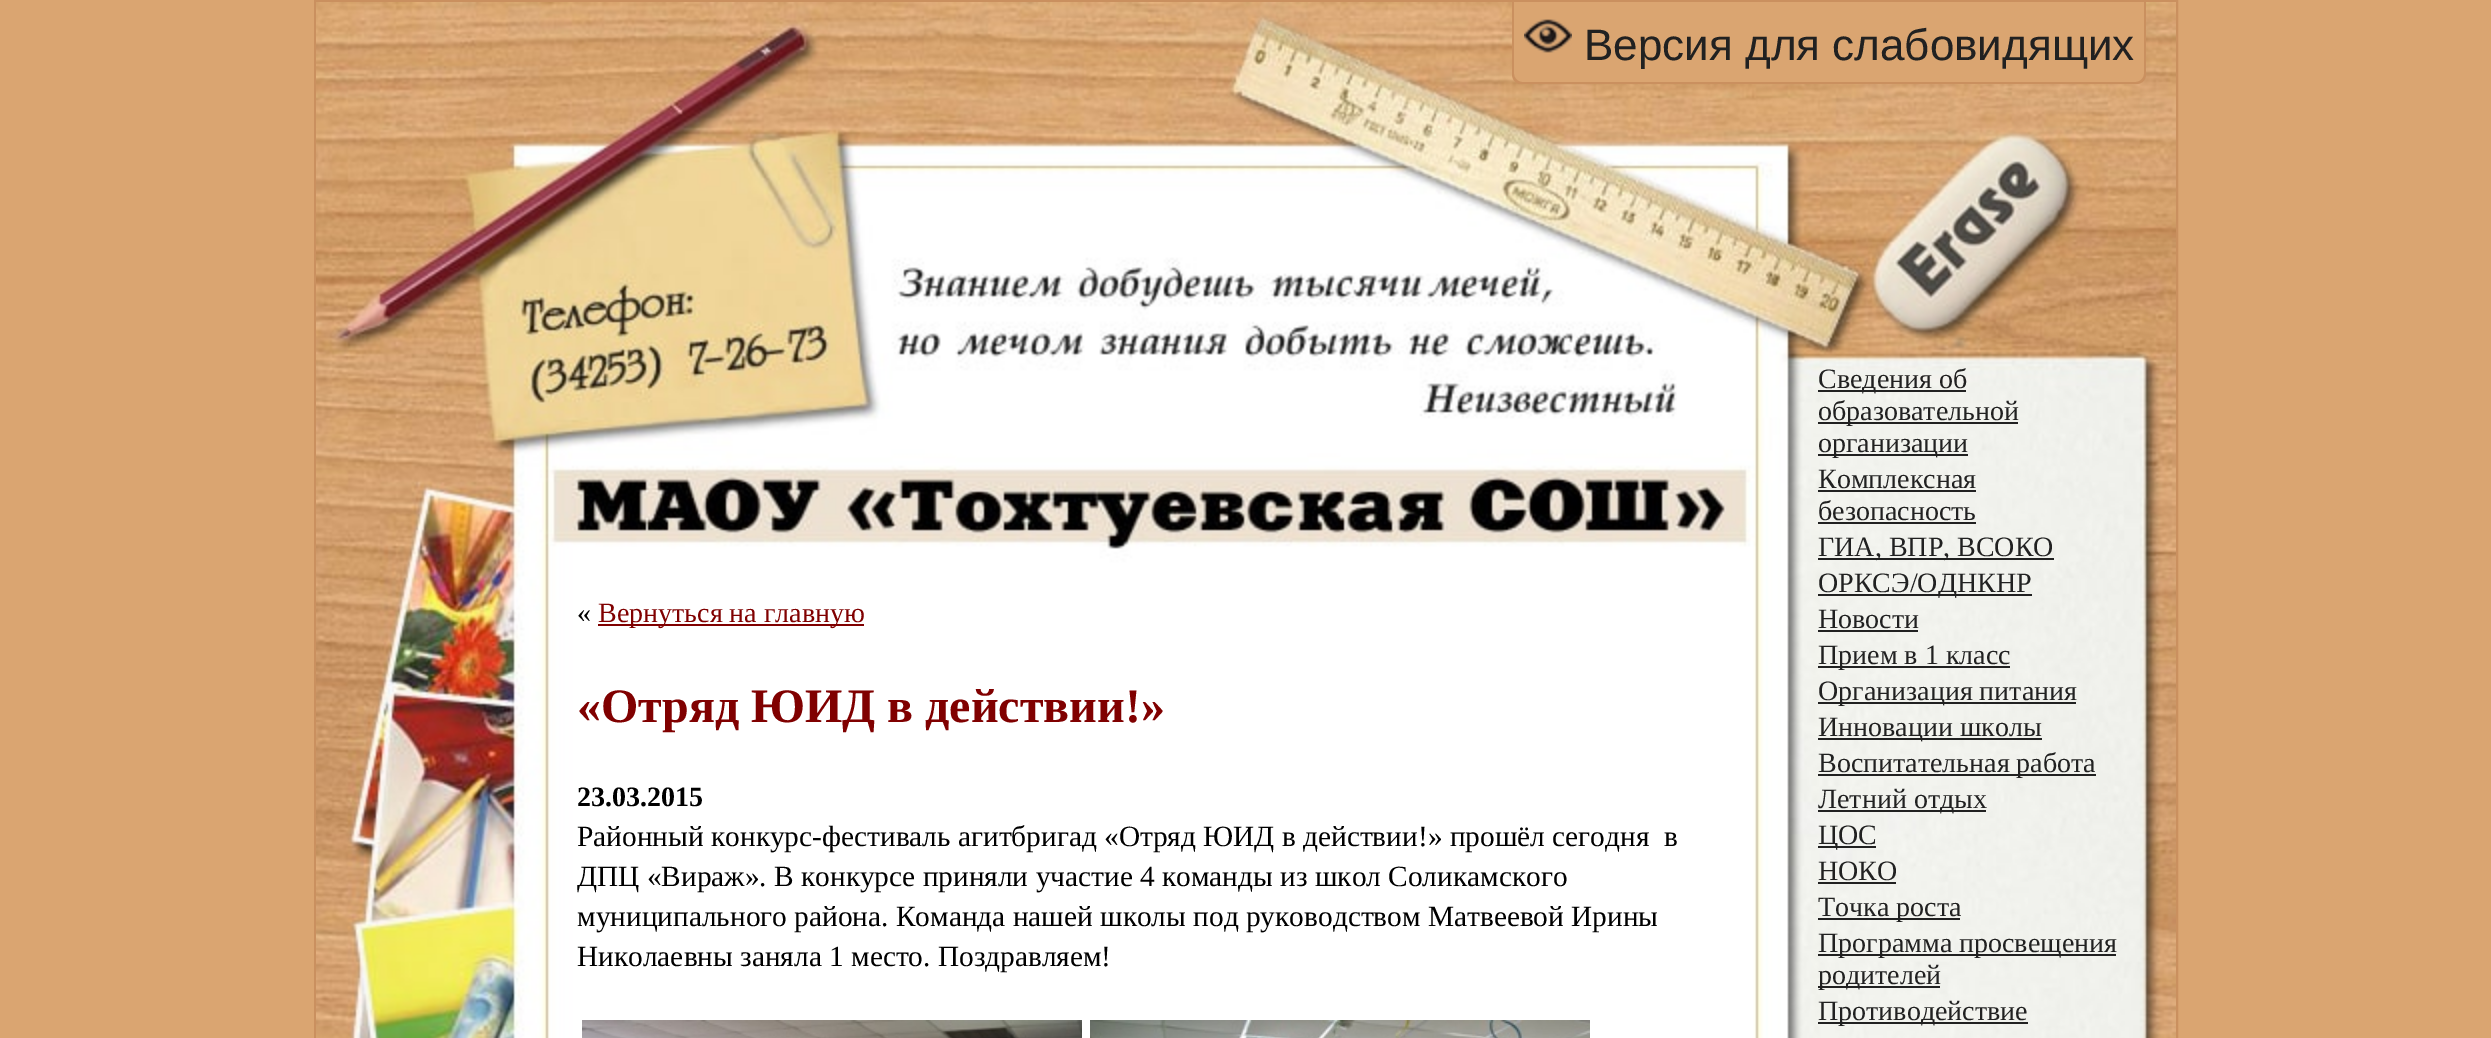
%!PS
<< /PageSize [2491 1038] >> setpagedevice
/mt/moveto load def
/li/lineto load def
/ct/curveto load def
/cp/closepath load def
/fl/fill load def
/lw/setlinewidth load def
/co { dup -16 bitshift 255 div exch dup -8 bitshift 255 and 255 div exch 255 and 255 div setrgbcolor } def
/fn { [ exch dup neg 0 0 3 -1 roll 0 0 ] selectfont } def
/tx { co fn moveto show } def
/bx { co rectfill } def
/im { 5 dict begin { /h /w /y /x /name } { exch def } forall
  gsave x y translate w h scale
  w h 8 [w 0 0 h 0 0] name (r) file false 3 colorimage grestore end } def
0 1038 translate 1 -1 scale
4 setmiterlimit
0 0 2491 1038 16#DAA571 bx
16#CA905F co
2 lw
315 1 1862 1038 rectstroke
(media/2.raw) 316 2 1860 1036 im
16#DAA571 co
1514 2 mt 2144 2 li 2144 74 li 2144 78.5 2140.5 82 2136 82 ct 1522 82 li 1517.5 82 1514 78.5 1514 74 ct cp fl
16#CA905F co
1512 2 mt 2146 2 li 2146 74 li 2146 80 2142 84 2136 84 ct 1522 84 li 1516 84 1512 80 1512 74 ct cp 1514 2 mt 2144 2 li 2144 74 li 2144 78 2140 82 2136 82 ct 1522 82 li 1518 82 1514 78 1514 74 ct cp eofill
(media/1.raw) 1524 19 48 34 im
598 624 266 2 16#800000 bx
(media/3.raw) 582 1020 500 18 im
(media/4.raw) 1090 1020 500 18 im
1818 390 148 2 16#212121 bx
1818 422 200 2 16#212121 bx
1818 454 150 2 16#212121 bx
1818 490 158 2 16#212121 bx
1818 522 158 2 16#212121 bx
1818 558 236 2 16#212121 bx
1818 594 214 2 16#212121 bx
1818 630 100 2 16#212121 bx
1818 666 192 2 16#212121 bx
1818 702 258 2 16#212121 bx
1818 738 224 2 16#212121 bx
1818 774 278 2 16#212121 bx
1818 810 168 2 16#212121 bx
1818 846 58 2 16#212121 bx
1818 882 78 2 16#212121 bx
1818 918 142 2 16#212121 bx
1818 954 298 2 16#212121 bx
1818 986 122 2 16#212121 bx
1818 1022 210 2 16#212121 bx
(Версия для слабовидящих) 1584 60 /LiberationSans-Regular 44 16#212121 tx
(«) 577 622 /LiberationSerif-Regular 28 16#000000 tx
(Вернуться на главную) 598 622 /LiberationSerif-Regular 28 16#800000 tx
(«Отряд ЮИД в действии!») 577 722 /LiberationSerif-Bold 48 16#800000 tx
(23.03.2015) 577 806 /LiberationSerif-Bold 28 16#000000 tx
(Районный конкурс-фестиваль агитбригад «Отряд ЮИД в действии!» прошёл сегодня  в) 577 846 /LiberationSerif-Regular 29.35 16#000000 tx
(ДПЦ «Вираж». В конкурсе приняли участие 4 команды из школ Соликамского) 577 886 /LiberationSerif-Regular 29.35 16#000000 tx
(муниципального района. Команда нашей школы под руководством Матвеевой Ирины) 577 926 /LiberationSerif-Regular 29.35 16#000000 tx
(Николаевны заняла 1 место. Поздравляем!) 577 966 /LiberationSerif-Regular 29.35 16#000000 tx
(Сведения об) 1818 388 /LiberationSerif-Regular 28 16#212121 tx
(образовательной) 1818 420 /LiberationSerif-Regular 28 16#212121 tx
(организации) 1818 452 /LiberationSerif-Regular 28 16#212121 tx
(Комплексная) 1818 488 /LiberationSerif-Regular 28 16#212121 tx
(безопасность) 1818 520 /LiberationSerif-Regular 28 16#212121 tx
(ГИА, ВПР, ВСОКО) 1818 556 /LiberationSerif-Regular 28 16#212121 tx
(ОРКСЭ/ОДНКНР) 1818 592 /LiberationSerif-Regular 28 16#212121 tx
(Новости) 1818 628 /LiberationSerif-Regular 28 16#212121 tx
(Прием в 1 класс) 1818 664 /LiberationSerif-Regular 28 16#212121 tx
(Организация питания) 1818 700 /LiberationSerif-Regular 28 16#212121 tx
(Инновации школы) 1818 736 /LiberationSerif-Regular 28 16#212121 tx
(Воспитательная работа) 1818 772 /LiberationSerif-Regular 28 16#212121 tx
(Летний отдых) 1818 808 /LiberationSerif-Regular 28 16#212121 tx
(ЦОС) 1818 844 /LiberationSerif-Regular 28 16#212121 tx
(НОКО) 1818 880 /LiberationSerif-Regular 28 16#212121 tx
(Точка роста) 1818 916 /LiberationSerif-Regular 28 16#212121 tx
(Программа просвещения) 1818 952 /LiberationSerif-Regular 28 16#212121 tx
(родителей) 1818 984 /LiberationSerif-Regular 28 16#212121 tx
(Противодействие) 1818 1020 /LiberationSerif-Regular 28 16#212121 tx
showpage
